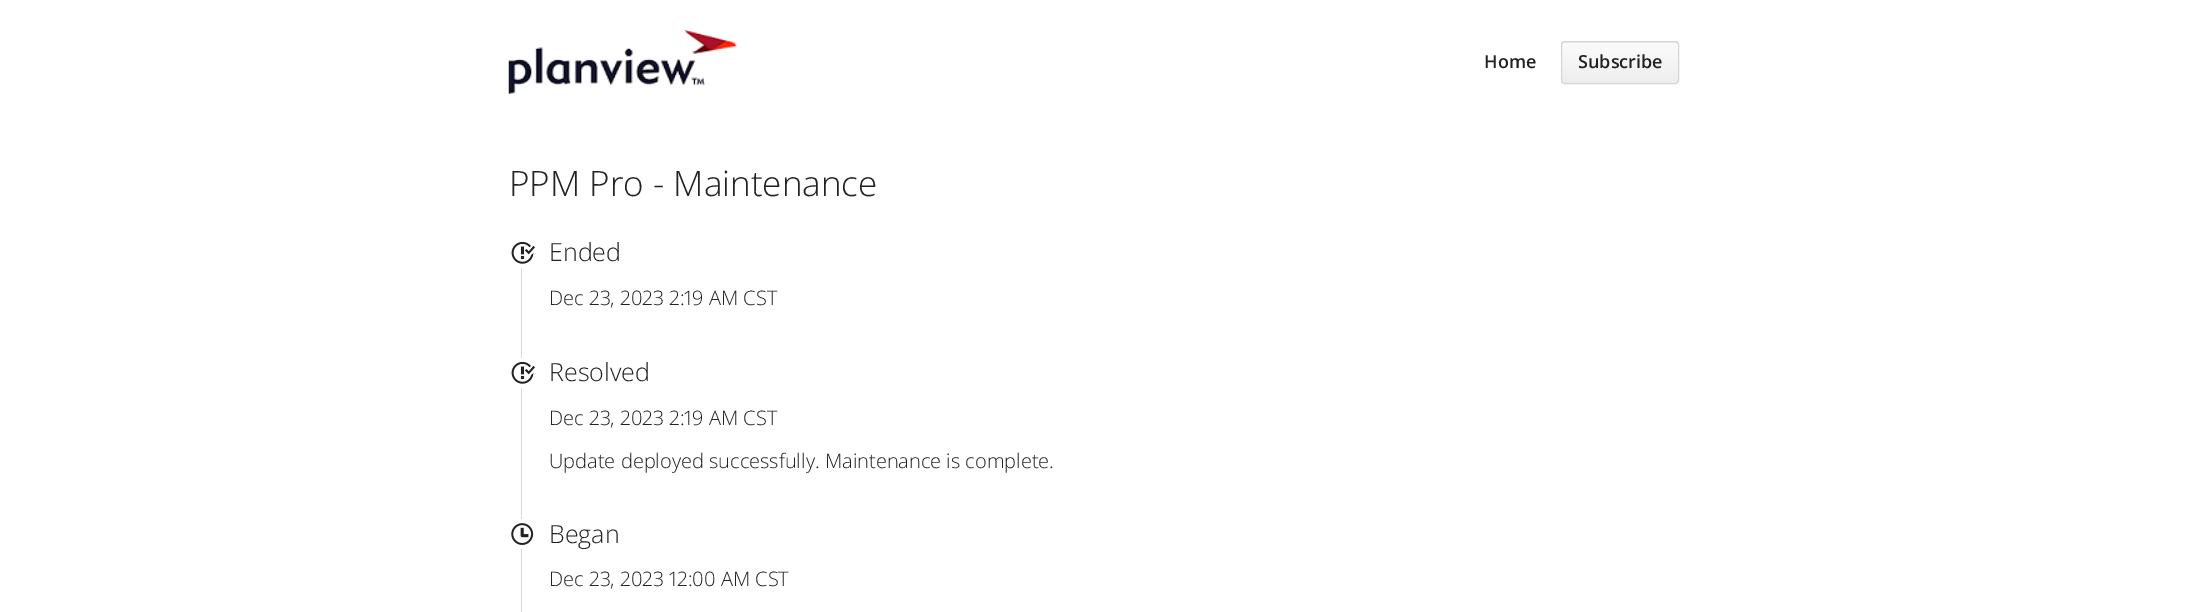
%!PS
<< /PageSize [2187 612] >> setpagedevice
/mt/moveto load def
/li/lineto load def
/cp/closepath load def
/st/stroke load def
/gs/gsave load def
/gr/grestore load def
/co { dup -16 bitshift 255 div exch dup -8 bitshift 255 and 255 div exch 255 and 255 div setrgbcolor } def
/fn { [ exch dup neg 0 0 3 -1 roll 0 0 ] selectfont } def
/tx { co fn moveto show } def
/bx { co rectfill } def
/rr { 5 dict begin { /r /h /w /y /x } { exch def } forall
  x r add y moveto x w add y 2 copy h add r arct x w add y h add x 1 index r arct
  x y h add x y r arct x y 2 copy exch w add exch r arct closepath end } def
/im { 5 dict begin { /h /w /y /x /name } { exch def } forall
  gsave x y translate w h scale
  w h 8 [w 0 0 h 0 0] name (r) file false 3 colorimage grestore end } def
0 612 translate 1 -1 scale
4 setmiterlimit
0 0 2187 612 16#FFFFFF bx
(media/1.raw) 508 30 229 64 im
gs
1561 41 118 43 4 rr clip newpath
gs 1561 41 mt 1679 41 li 1679 43 li 1561 43 li cp clip newpath
<< /ShadingType 2 /ColorSpace /DeviceRGB /Coords [1620 2.5 1620 43] /Extend [true true] /Function << /FunctionType 2 /Domain [0 1] /C0 [.984 .984 .984] /C1 [.933 .933 .933] /N 1 >> >> shfill gr
gs 1561 43 mt 1679 43 li 1679 83 li 1561 83 li cp clip newpath
<< /ShadingType 2 /ColorSpace /DeviceRGB /Coords [1620 42 1620 83] /Extend [true true] /Function << /FunctionType 2 /Domain [0 1] /C0 [.984 .984 .984] /C1 [.933 .933 .933] /N 1 >> >> shfill gr
gr
16#D5D5D5 co
1561.5 41.5 117 42 3.5 rr st
521 268 1 344 16#D9D9D9 bx
(media/2.raw) 511 241 24 23 im
521 358 1 30 16#FFFFFF bx
(media/2.raw) 511 361 24 23 im
521 519 1 30 16#FFFFFF bx
(media/3.raw) 511 523 23 22 im
(Home) 1484 68 /OpenSans-SemiBold 18 16#222222 tx
(Subscribe) 1578 68 /OpenSans-SemiBold 18 16#222222 tx
(PPM Pro - Maintenance) 509 196 /OpenSans-Light 35 16#222222 tx
(Ended) 549 261 /OpenSans-Light 25 16#222222 tx
(Dec 23, 2023 2:19 AM CST) 549 305 /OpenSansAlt-Light 20 16#222222 tx
(Resolved) 549 381 /OpenSans-Light 25 16#222222 tx
(Dec 23, 2023 2:19 AM CST) 549 425 /OpenSansAlt-Light 20 16#222222 tx
(Update deployed successfully. Maintenance is complete.) 549 468 /OpenSans-Light 20 16#222222 tx
(Began) 549 543 /OpenSans-Light 25 16#222222 tx
(Dec 23, 2023 12:00 AM CST) 549 586 /OpenSansAlt-Light 20 16#222222 tx
showpage
